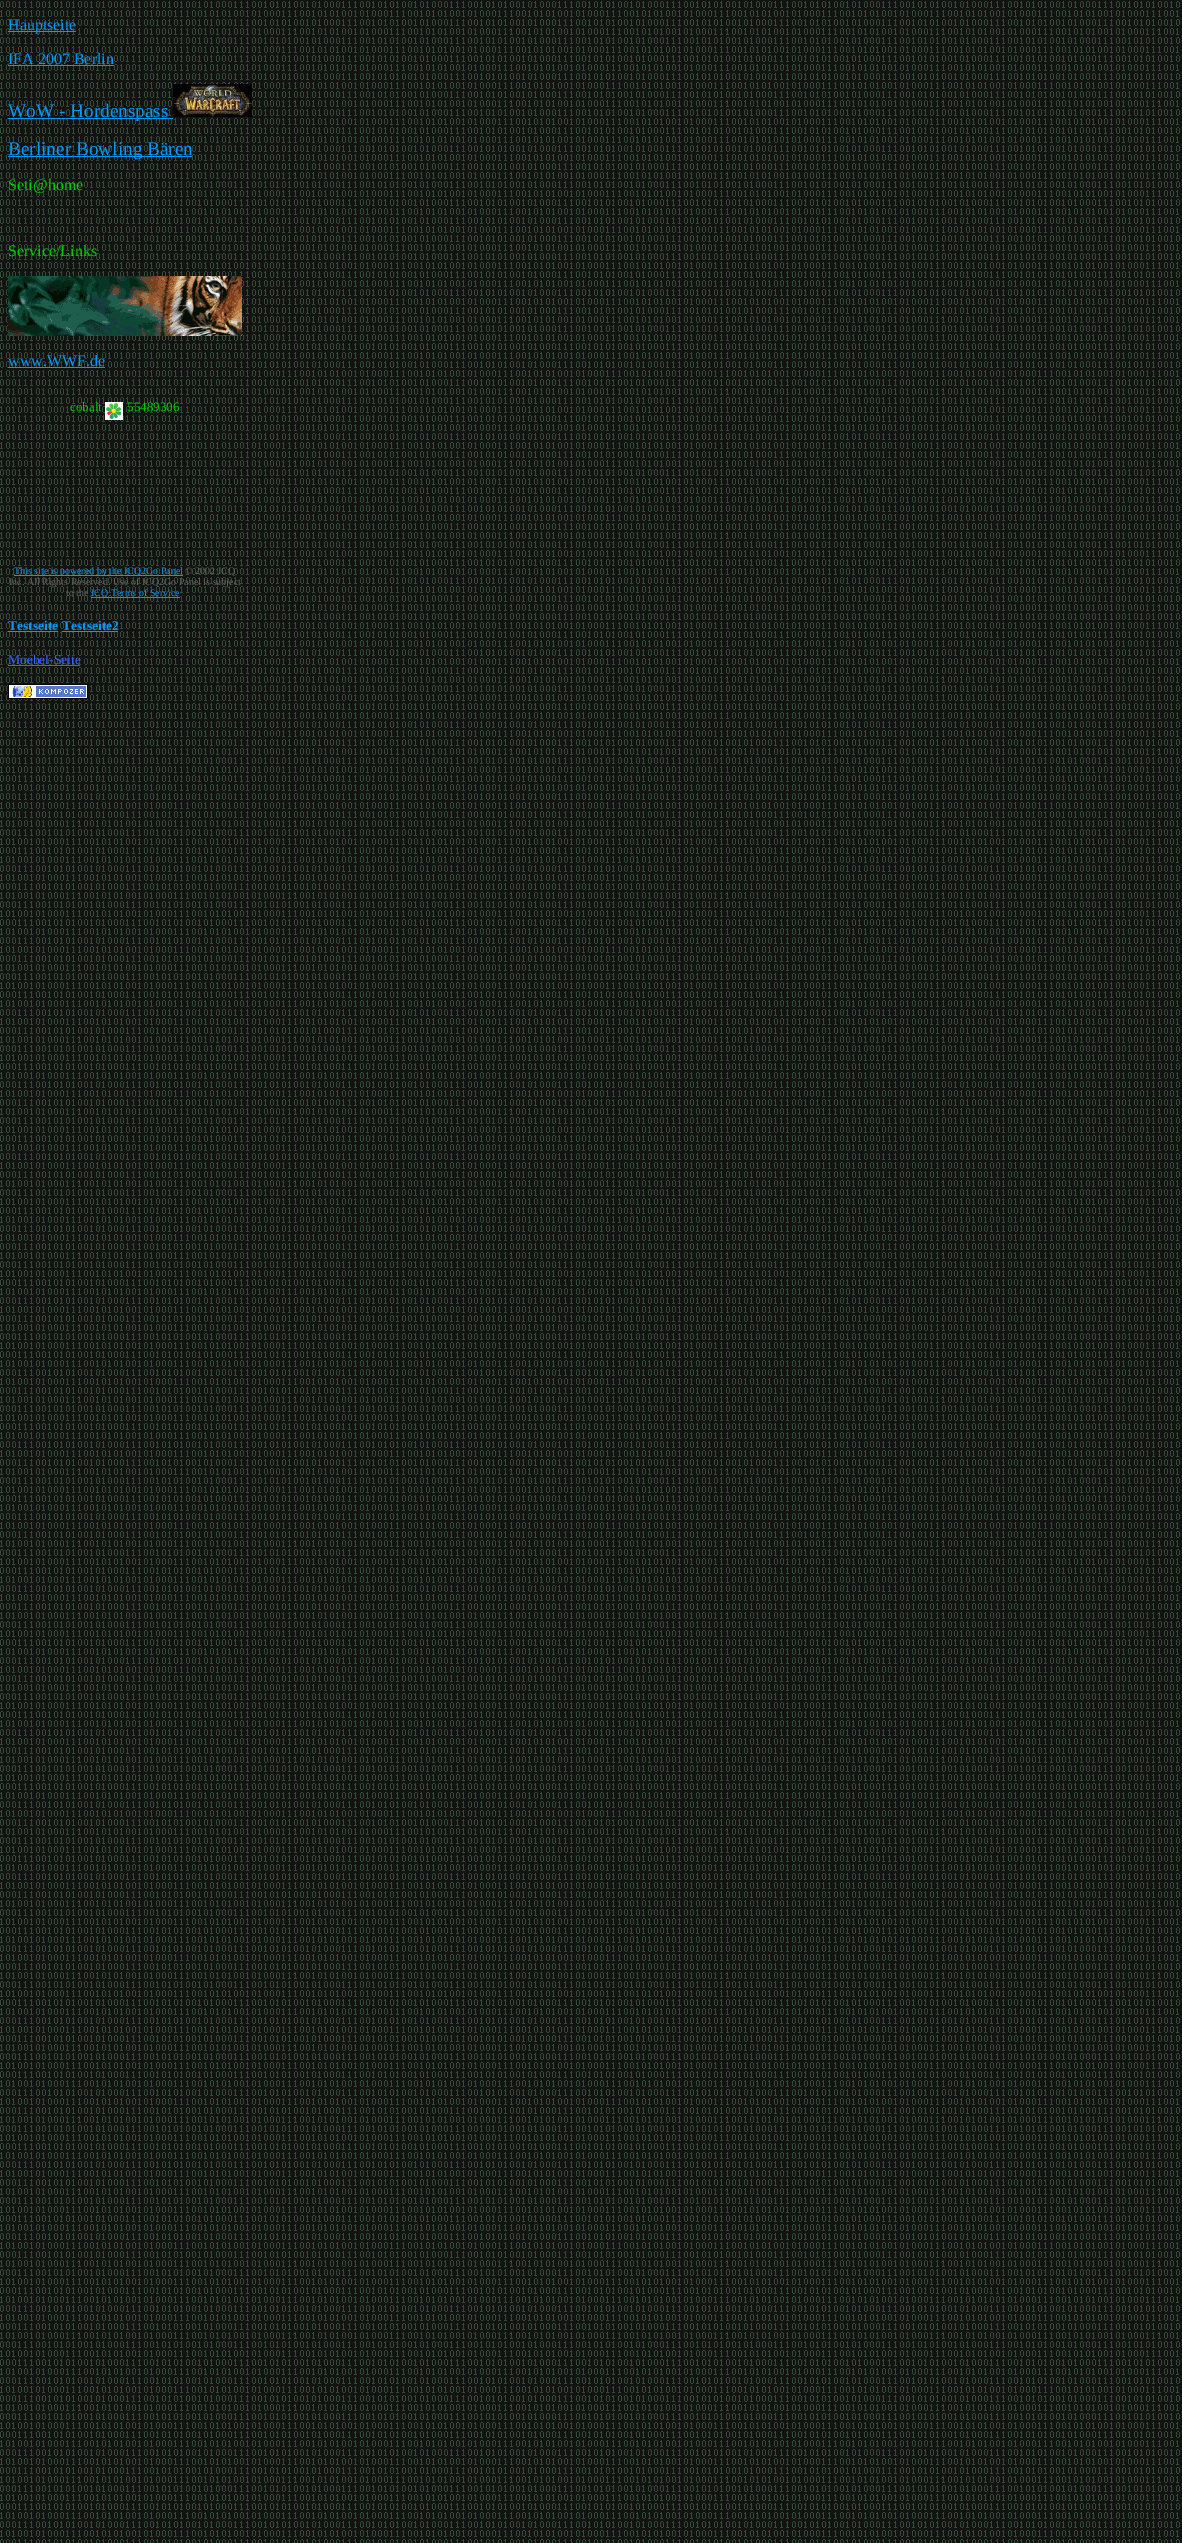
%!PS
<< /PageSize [1182 2543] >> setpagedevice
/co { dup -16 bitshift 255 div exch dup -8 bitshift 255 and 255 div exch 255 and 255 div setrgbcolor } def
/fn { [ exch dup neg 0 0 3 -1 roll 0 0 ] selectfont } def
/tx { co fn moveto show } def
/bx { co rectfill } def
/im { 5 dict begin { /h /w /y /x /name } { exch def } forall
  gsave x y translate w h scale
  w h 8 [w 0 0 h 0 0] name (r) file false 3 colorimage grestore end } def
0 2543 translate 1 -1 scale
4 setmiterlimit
0 0 1182 2543 16#131313 bx
(media/1.raw) 0 1 1180 2542 im
8 31 68 1 16#0099FF bx
8 65 106 1 16#0099FF bx
8 118 165 1 16#0099FF bx
(media/2.raw) 173 84 79 33 im
8 156 184 1 16#0099FF bx
(media/3.raw) 8 276 234 60 im
8 367 97 1 16#0099FF bx
(media/4.raw) 105 402 18 18 im
14 575 169 1 16#0099FF bx
91 597 89 1 16#0099FF bx
8 631 50 1 16#0099FF bx
62 631 56 1 16#0099FF bx
8 665 72 1 16#3366FF bx
(media/5.raw) 8 684 80 15 im
(Hauptseite) 8 30 /LiberationSerif-Regular 16 16#0099FF tx
(IFA 2007 Berlin) 8 64 /LiberationSerif-Regular 16 16#0099FF tx
(WoW - Hordenspass) 8 117 /LiberationSerif-Regular 19.25 16#0099FF tx
(Berliner Bowling Bären) 8 155 /LiberationSerif-Regular 19.25 16#0099FF tx
(Seti@home) 8 190 /LiberationSerif-Regular 16 16#00CC00 tx
(Service/Links) 8 256 /LiberationSerif-Regular 16 16#00CC00 tx
(www.WWF.de) 8 366 /LiberationSerif-Regular 16 16#0099FF tx
(cobalt) 70 411 /LiberationSerif-Regular 13 16#00CC00 tx
(55489306) 127 411 /LiberationSerif-Regular 13 16#00CC00 tx
(This site is powered by the ICQ2Go Panel) 14 574 /LiberationSerif-Regular 10 16#0099FF tx
(© 2002 ICQ) 185 574 /LiberationSerif-Regular 10 16#666666 tx
(Inc. All Rights Reserved. Use of ICQ2Go Panel is subject) 9 585 /LiberationSerif-Regular 10 16#666666 tx
(to the) 66 596 /LiberationSerif-Regular 10 16#666666 tx
(ICQ Terms of Service) 91 596 /LiberationSerif-Regular 10 16#0099FF tx
(.) 180 596 /LiberationSerif-Regular 10 16#000000 tx
(Testseite) 8 630 /LiberationSerif-Bold 13.5 16#0099FF tx
(Testseite2) 62 630 /LiberationSerif-Bold 13.5 16#0099FF tx
(Moebel-Seite) 8 664 /LiberationSerif-Regular 13.5 16#3366FF tx
showpage
